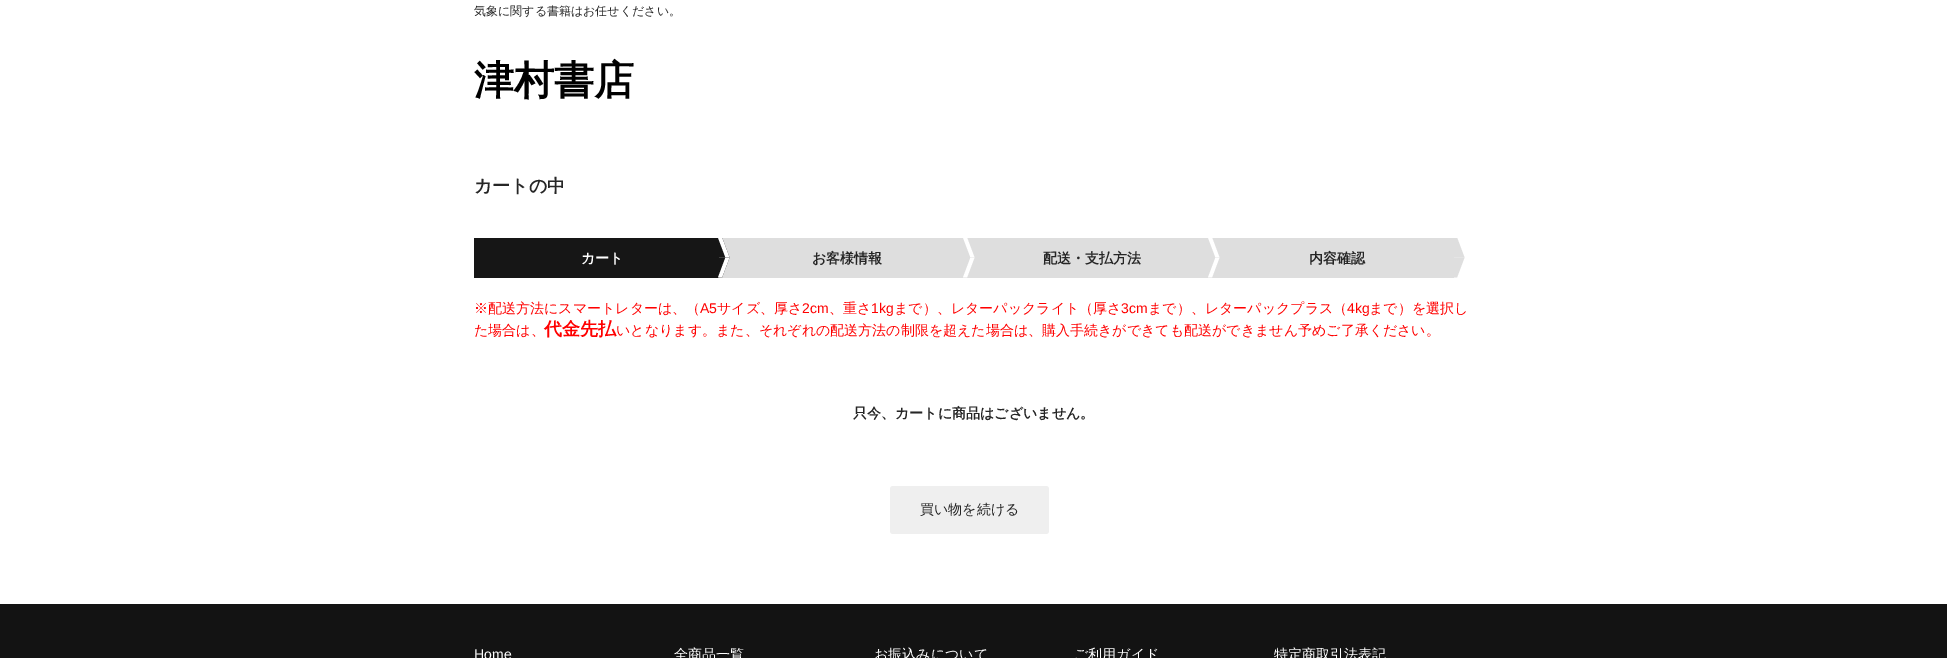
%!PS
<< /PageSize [1947 658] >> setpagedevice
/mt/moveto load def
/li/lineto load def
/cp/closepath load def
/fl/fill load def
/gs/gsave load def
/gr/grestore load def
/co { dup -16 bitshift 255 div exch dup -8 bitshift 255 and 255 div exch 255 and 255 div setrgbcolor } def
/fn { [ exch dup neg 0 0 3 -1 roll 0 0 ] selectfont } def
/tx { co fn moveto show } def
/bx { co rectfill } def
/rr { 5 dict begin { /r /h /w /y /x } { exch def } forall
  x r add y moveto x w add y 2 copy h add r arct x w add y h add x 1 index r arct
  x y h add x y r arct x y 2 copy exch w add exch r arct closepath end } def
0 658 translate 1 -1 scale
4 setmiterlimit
0 0 1947 658 16#FFFFFF bx
474 238 245 40 16#161616 bx
719 238 735 40 16#DEDEDE bx
gs
474 238 1000 40 rectclip
16#161616 co
698 237.5 mt 722 237.5 li 729.5 257.5 li 705.5 257.5 li cp fl
16#FFFFFF co
718 237.5 mt 722 237.5 li 729.5 257.5 li 725.5 257.5 li cp fl
gr
16#161616 co
705.5 257.5 mt 729.5 257.5 li 722 277.5 li 698 277.5 li cp fl
16#FFFFFF co
725.5 257.5 mt 729.5 257.5 li 722 277.5 li 718 277.5 li cp fl
gs
474 238 1000 40 rectclip
963 237.5 mt 967 237.5 li 974.5 257.5 li 970.5 257.5 li cp fl
gr
16#DEDEDE co
950.5 257.5 mt 974.5 257.5 li 967 277.5 li 943 277.5 li cp fl
16#FFFFFF co
970.5 257.5 mt 974.5 257.5 li 967 277.5 li 963 277.5 li cp fl
gs
474 238 1000 40 rectclip
1208 237.5 mt 1212 237.5 li 1219.5 257.5 li 1215.5 257.5 li cp fl
gr
16#DEDEDE co
1195.5 257.5 mt 1219.5 257.5 li 1212 277.5 li 1188 277.5 li cp fl
16#FFFFFF co
1215.5 257.5 mt 1219.5 257.5 li 1212 277.5 li 1208 277.5 li cp fl
gs
474 238 1000 40 rectclip
16#DEDEDE co
1437 237.5 mt 1457 237.5 li 1464.5 257.5 li 1444.5 257.5 li cp fl
gr
16#DEDEDE co
1444.5 257.5 mt 1464.5 257.5 li 1457 277.5 li 1437 277.5 li cp fl
16#EFEFEF co
890 486 159 48 3 rr fl
0 604 1947 54 16#131313 bx
(気象に関する書籍はお任せください。) 474 15 /WenQuanYiZenHei-Medium 12 16#262626 tx
(津村書店) 474 94 /WenQuanYiZenHei-Bold 40 16#000000 tx
(カートの中) 474 192 /WenQuanYiZenHei-Bold 18 16#262626 tx
(カート) 581 263 /WenQuanYiZenHei-Bold 14 16#FFFFFF tx
(お客様情報) 812 263 /WenQuanYiZenHei-Bold 14 16#262626 tx
(配送・支払方法) 1043 263 /WenQuanYiZenHei-Bold 14 16#262626 tx
(内容確認) 1309 263 /WenQuanYiZenHei-Bold 14 16#262626 tx
(※配送方法にスマートレターは、（) 474 313 /WenQuanYiZenHei-Medium 14 16#FF0000 tx
(A5) 700 313 /LiberationSans-Regular 14 16#FF0000 tx
(サイズ、厚さ) 717 313 /WenQuanYiZenHei-Medium 14 16#FF0000 tx
(2cm) 802 313 /LiberationSans-Regular 14 16#FF0000 tx
(、重さ) 829 313 /WenQuanYiZenHei-Medium 14 16#FF0000 tx
(1kg) 871 313 /LiberationSans-Regular 14 16#FF0000 tx
(まで）、レターパックライト（厚さ) 894 313 /WenQuanYiZenHei-Medium 14 16#FF0000 tx
(3cm) 1121 313 /LiberationSans-Regular 14 16#FF0000 tx
(まで）、レターパックプラス（) 1148 313 /WenQuanYiZenHei-Medium 14 16#FF0000 tx
(4kg) 1347 313 /LiberationSans-Regular 14 16#FF0000 tx
(まで）を選択し) 1369 313 /WenQuanYiZenHei-Medium 14 16#FF0000 tx
(た場合は、) 474 335 /WenQuanYiZenHei-Medium 14 16#FF0000 tx
(代金先払) 544 335 /WenQuanYiZenHei-Bold 18 16#FF0000 tx
(いとなります。また、それぞれの配送方法の制限を超えた場合は、購入手続きができても配送ができません予めご了承ください。) 616 335 /WenQuanYiZenHei-Medium 14 16#FF0000 tx
(只今、カートに商品はございません。) 853 418 /WenQuanYiZenHei-Bold 14 16#262626 tx
(買い物を続ける) 920 514 /WenQuanYiZenHei-Medium 14 16#262626 tx
(Home) 474 659 /LiberationSans-Regular 14 16#FFFFFF tx
(全商品一覧) 674 659 /WenQuanYiZenHei-Medium 14 16#FFFFFF tx
(お振込みについて) 874 659 /WenQuanYiZenHei-Medium 14 16#FFFFFF tx
(ご利用ガイド) 1074 659 /WenQuanYiZenHei-Medium 14 16#FFFFFF tx
(特定商取引法表記) 1274 659 /WenQuanYiZenHei-Medium 14 16#FFFFFF tx
showpage
